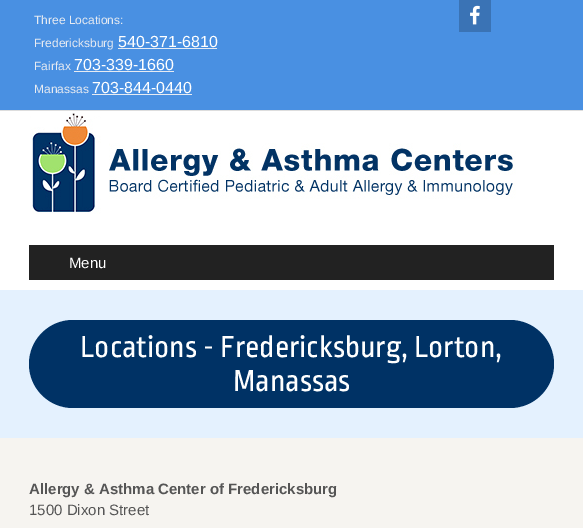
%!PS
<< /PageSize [583 528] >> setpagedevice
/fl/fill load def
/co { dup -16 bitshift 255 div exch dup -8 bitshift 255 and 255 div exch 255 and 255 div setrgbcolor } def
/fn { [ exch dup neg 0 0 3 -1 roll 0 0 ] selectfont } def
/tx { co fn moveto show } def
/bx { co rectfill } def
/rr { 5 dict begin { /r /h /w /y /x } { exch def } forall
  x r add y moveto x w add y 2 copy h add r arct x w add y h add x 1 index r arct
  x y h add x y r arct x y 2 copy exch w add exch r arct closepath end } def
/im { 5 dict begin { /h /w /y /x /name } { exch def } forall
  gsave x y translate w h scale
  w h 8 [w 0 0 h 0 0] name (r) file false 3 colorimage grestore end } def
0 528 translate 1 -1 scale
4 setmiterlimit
0 0 583 528 16#FFFFFF bx
0 0 583 110 16#4990E2 bx
0 110 583 1 16#DDDDDD bx
118 48 99 1 16#E7EBF2 bx
74 71 100 1 16#E7EBF2 bx
92 94 100 1 16#E7EBF2 bx
459 0 32 32 16#3A73B5 bx
(media/1.raw) 470 5 10 20 im
(media/2.raw) 30 113 486 101 im
29 245 525 35 16#222222 bx
0 290 583 148 16#E4F1FE bx
16#003265 co
29 320 525 88 44 rr fl
0 438 583 90 16#F6F4F0 bx
(Three Locations:) 34 24 /LiberationSans-Regular 12 16#E7EBF2 tx
(Fredericksburg) 34 47 /LiberationSans-Regular 12 16#E7EBF2 tx
(540-371-6810) 118 47 /LiberationSans-Regular 16 16#FFFFFF tx
(Fairfax) 34 70 /LiberationSans-Regular 12 16#E7EBF2 tx
(703-339-1660) 74 70 /LiberationSans-Regular 16 16#FFFFFF tx
(Manassas) 34 93 /LiberationSans-Regular 12 16#E7EBF2 tx
(703-844-0440) 92 93 /LiberationSans-Regular 16 16#FFFFFF tx
(Menu) 69 268 /LiberationSans-Regular 15 16#FFFFFF tx
(Locations - Fredericksburg, Lorton,) 80 357 /RopaSans-Regular 32 16#FFFFFF tx
(Manassas) 233 391 /RopaSans-Regular 32 16#FFFFFF tx
(Allergy & Asthma Center of Fredericksburg) 29 494 /LiberationSans-Bold 15 16#555555 tx
(1500 Dixon Street) 29 515 /LiberationSans-Regular 15 16#555555 tx
showpage
